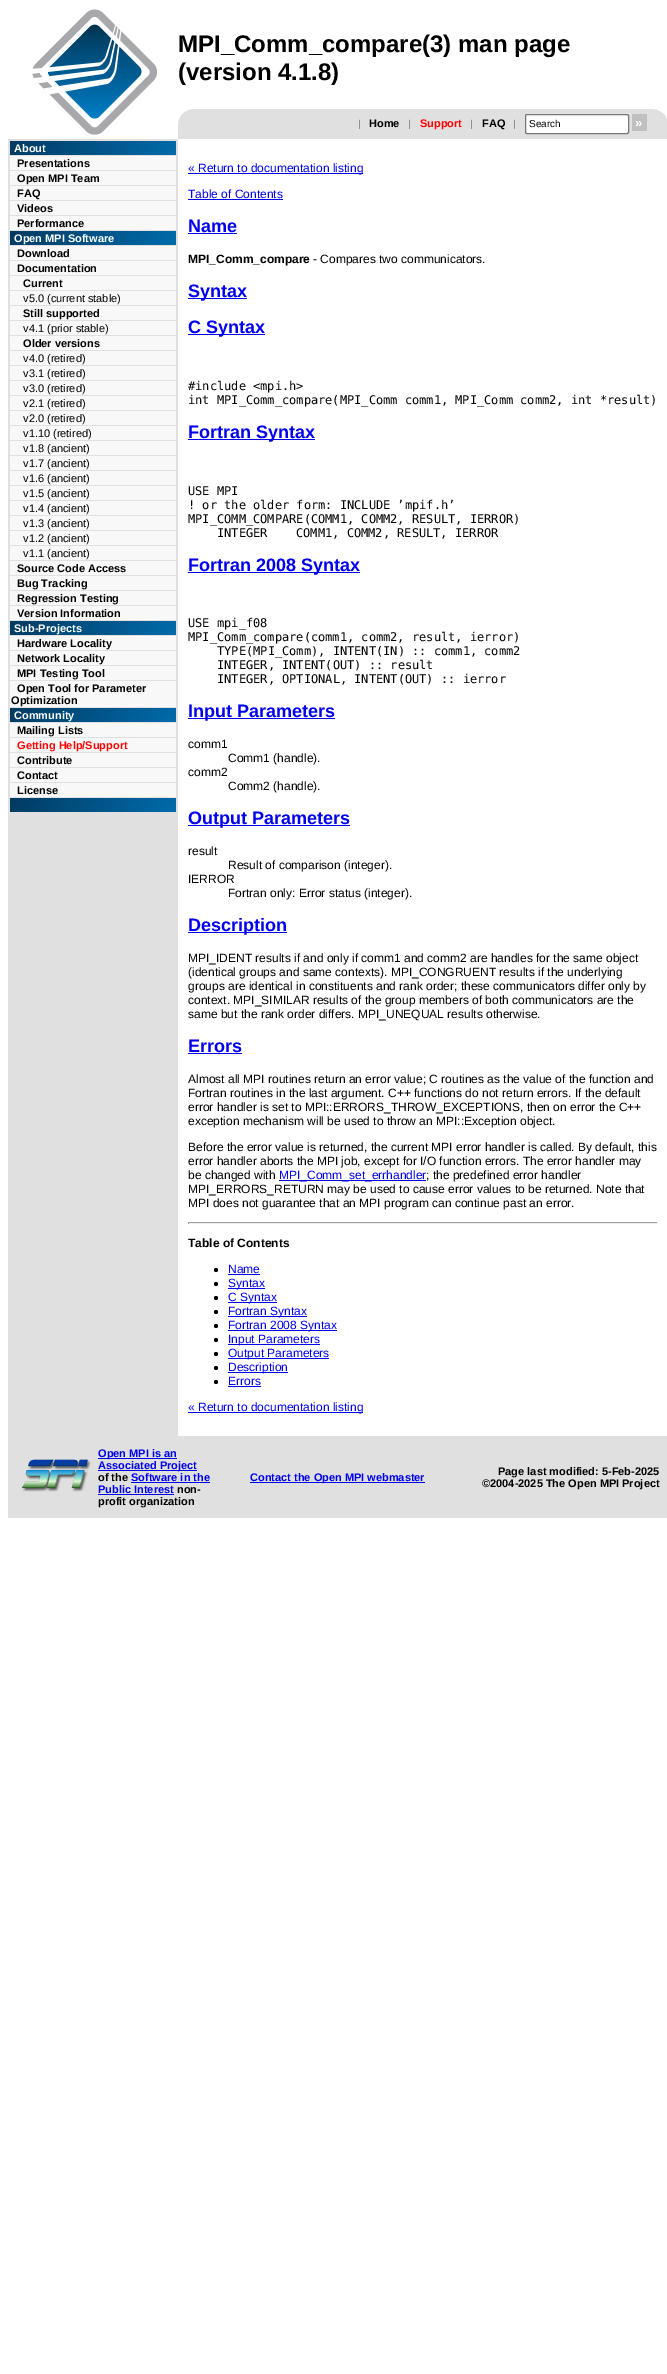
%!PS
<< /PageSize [667 2374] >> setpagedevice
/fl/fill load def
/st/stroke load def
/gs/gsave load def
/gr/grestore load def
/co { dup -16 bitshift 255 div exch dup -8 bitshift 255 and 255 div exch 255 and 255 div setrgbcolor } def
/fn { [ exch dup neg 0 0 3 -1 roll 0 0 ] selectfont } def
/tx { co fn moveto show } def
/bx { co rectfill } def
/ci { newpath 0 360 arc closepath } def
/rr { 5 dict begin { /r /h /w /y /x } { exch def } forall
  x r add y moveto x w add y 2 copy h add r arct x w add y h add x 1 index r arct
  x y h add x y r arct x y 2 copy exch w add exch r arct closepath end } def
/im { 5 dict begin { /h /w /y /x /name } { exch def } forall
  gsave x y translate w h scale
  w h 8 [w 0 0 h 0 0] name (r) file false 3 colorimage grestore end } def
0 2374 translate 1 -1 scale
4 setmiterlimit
0 0 667 2374 16#FFFFFF bx
(media/1.raw) 32 9 126 126 im
178 109 489 30 16#E0E0E0 bx
(media/2.raw) 178 109 14 14 im
(media/3.raw) 654 109 13 10 im
16#FFFFFF co
525.5 114.5 103 19 1.5 rr gs fl gr
16#767676 co
st
632 114 15 17 16#C0C0C0 bx
8 139 170 1297 16#E0E0E0 bx
(media/4.raw) 10 141 166 14 im
10 156 166 14 16#F8F8F8 bx
10 171 166 14 16#F8F8F8 bx
10 186 166 14 16#F8F8F8 bx
10 201 166 14 16#F8F8F8 bx
10 216 166 14 16#F8F8F8 bx
(media/4.raw) 10 231 166 14 im
10 246 166 14 16#F8F8F8 bx
10 261 166 14 16#F8F8F8 bx
10 276 166 14 16#F8F8F8 bx
10 291 166 14 16#F8F8F8 bx
10 306 166 14 16#F8F8F8 bx
10 321 166 14 16#F8F8F8 bx
10 336 166 14 16#F8F8F8 bx
10 351 166 14 16#F8F8F8 bx
10 366 166 14 16#F8F8F8 bx
10 381 166 14 16#F8F8F8 bx
10 396 166 14 16#F8F8F8 bx
10 411 166 14 16#F8F8F8 bx
10 426 166 14 16#F8F8F8 bx
10 441 166 14 16#F8F8F8 bx
10 456 166 14 16#F8F8F8 bx
10 471 166 14 16#F8F8F8 bx
10 486 166 14 16#F8F8F8 bx
10 501 166 14 16#F8F8F8 bx
10 516 166 14 16#F8F8F8 bx
10 531 166 14 16#F8F8F8 bx
10 546 166 14 16#F8F8F8 bx
10 561 166 14 16#F8F8F8 bx
10 576 166 14 16#F8F8F8 bx
10 591 166 14 16#F8F8F8 bx
10 606 166 14 16#F8F8F8 bx
(media/4.raw) 10 621 166 14 im
10 636 166 14 16#F8F8F8 bx
10 651 166 14 16#F8F8F8 bx
10 666 166 14 16#F8F8F8 bx
10 681 166 26 16#F8F8F8 bx
(media/4.raw) 10 708 166 14 im
10 723 166 14 16#F8F8F8 bx
10 738 166 14 16#F8F8F8 bx
10 753 166 14 16#F8F8F8 bx
10 768 166 14 16#F8F8F8 bx
10 783 166 14 16#F8F8F8 bx
(media/4.raw) 10 798 166 14 im
188 173 175 1 16#0000EE bx
188 199 95 1 16#0000EE bx
188 233 49 1 16#0000EE bx
188 298 59 1 16#0000EE bx
188 334 77 1 16#0000EE bx
188 439 127 1 16#0000EE bx
188 572 172 1 16#0000EE bx
188 718 147 1 16#0000EE bx
188 825 162 1 16#0000EE bx
188 932 99 1 16#0000EE bx
188 1053 54 1 16#0000EE bx
279 1180 147 1 16#0000EE bx
188 1222 470 1 16#9F9F9F bx
657 1222 1 2 16#EEEEEE bx
188 1223 470 1 16#EEEEEE bx
188 1222 1 2 16#9F9F9F bx
16#000000 co
216 1270 2 ci fl
228 1274 32 1 16#0000EE bx
16#000000 co
216 1284 2 ci fl
228 1288 37 1 16#0000EE bx
16#000000 co
216 1298 2 ci fl
228 1302 49 1 16#0000EE bx
16#000000 co
216 1312 2 ci fl
228 1316 79 1 16#0000EE bx
16#000000 co
216 1326 2 ci fl
228 1330 109 1 16#0000EE bx
16#000000 co
216 1340 2 ci fl
228 1344 92 1 16#0000EE bx
16#000000 co
216 1354 2 ci fl
228 1358 101 1 16#0000EE bx
16#000000 co
216 1368 2 ci fl
228 1372 60 1 16#0000EE bx
16#000000 co
216 1382 2 ci fl
228 1386 33 1 16#0000EE bx
188 1412 175 1 16#0000EE bx
8 1436 659 82 16#E0E0E0 bx
(media/5.raw) 21 1459 70 33 im
98 1458 79 1 16#0000EE bx
98 1470 99 1 16#0000EE bx
131 1482 79 1 16#0000EE bx
98 1494 76 1 16#0000EE bx
250 1482 175 1 16#0000EE bx
(MPI_Comm_compare\(3\) man page) 178 52 /LiberationSans-Bold 24 16#000000 tx
(\(version 4.1.8\)) 178 80 /LiberationSans-Bold 24 16#000000 tx
(|) 358 127 /LiberationSans-Regular 10 16#777777 tx
(Home) 369 127 /LiberationSans-Bold 11 16#000000 tx
(|) 408 127 /LiberationSans-Regular 10 16#777777 tx
(Support) 420 127 /LiberationSans-Bold 11 16#FF0000 tx
(|) 470 127 /LiberationSans-Regular 10 16#777777 tx
(FAQ) 482 127 /LiberationSans-Bold 11 16#000000 tx
(|) 513 127 /LiberationSans-Regular 10 16#777777 tx
(Search) 529 127 /LiberationSans-Regular 10 16#000000 tx
(») 635 127 /LiberationSans-Bold 13 16#FFFFFF tx
(About) 14 152 /LiberationSans-Bold 11 16#FFFFFF tx
(Presentations) 17 167 /LiberationSans-Bold 11 16#000000 tx
(Open MPI Team) 17 182 /LiberationSans-Bold 11 16#000000 tx
(FAQ) 17 197 /LiberationSans-Bold 11 16#000000 tx
(Videos) 17 212 /LiberationSans-Bold 11 16#000000 tx
(Performance) 17 227 /LiberationSans-Bold 11 16#000000 tx
(Open MPI Software) 14 242 /LiberationSans-Bold 11 16#FFFFFF tx
(Download) 17 257 /LiberationSans-Bold 11 16#000000 tx
(Documentation) 17 272 /LiberationSans-Bold 11 16#000000 tx
(Current) 23 287 /LiberationSans-Bold 11 16#000000 tx
(v5.0 \(current stable\)) 23 302 /LiberationSans-Regular 11 16#000000 tx
(Still supported) 23 317 /LiberationSans-Bold 11 16#000000 tx
(v4.1 \(prior stable\)) 23 332 /LiberationSans-Regular 11 16#000000 tx
(Older versions) 23 347 /LiberationSans-Bold 11 16#000000 tx
(v4.0 \(retired\)) 23 362 /LiberationSans-Regular 11 16#000000 tx
(v3.1 \(retired\)) 23 377 /LiberationSans-Regular 11 16#000000 tx
(v3.0 \(retired\)) 23 392 /LiberationSans-Regular 11 16#000000 tx
(v2.1 \(retired\)) 23 407 /LiberationSans-Regular 11 16#000000 tx
(v2.0 \(retired\)) 23 422 /LiberationSans-Regular 11 16#000000 tx
(v1.10 \(retired\)) 23 437 /LiberationSans-Regular 11 16#000000 tx
(v1.8 \(ancient\)) 23 452 /LiberationSans-Regular 11 16#000000 tx
(v1.7 \(ancient\)) 23 467 /LiberationSans-Regular 11 16#000000 tx
(v1.6 \(ancient\)) 23 482 /LiberationSans-Regular 11 16#000000 tx
(v1.5 \(ancient\)) 23 497 /LiberationSans-Regular 11 16#000000 tx
(v1.4 \(ancient\)) 23 512 /LiberationSans-Regular 11 16#000000 tx
(v1.3 \(ancient\)) 23 527 /LiberationSans-Regular 11 16#000000 tx
(v1.2 \(ancient\)) 23 542 /LiberationSans-Regular 11 16#000000 tx
(v1.1 \(ancient\)) 23 557 /LiberationSans-Regular 11 16#000000 tx
(Source Code Access) 17 572 /LiberationSans-Bold 11 16#000000 tx
(Bug Tracking) 17 587 /LiberationSans-Bold 11 16#000000 tx
(Regression Testing) 17 602 /LiberationSans-Bold 11 16#000000 tx
(Version Information) 17 617 /LiberationSans-Bold 11 16#000000 tx
(Sub-Projects) 14 632 /LiberationSans-Bold 11 16#FFFFFF tx
(Hardware Locality) 17 647 /LiberationSans-Bold 11 16#000000 tx
(Network Locality) 17 662 /LiberationSans-Bold 11 16#000000 tx
(MPI Testing Tool) 17 677 /LiberationSans-Bold 11 16#000000 tx
(Open Tool for Parameter) 17 692 /LiberationSans-Bold 11 16#000000 tx
(Optimization) 11 704 /LiberationSans-Bold 11 16#000000 tx
(Community) 14 719 /LiberationSans-Bold 11 16#FFFFFF tx
(Mailing Lists) 17 734 /LiberationSans-Bold 11 16#000000 tx
(Getting Help/Support) 17 749 /LiberationSans-Bold 11 16#FF0000 tx
(Contribute) 17 764 /LiberationSans-Bold 11 16#000000 tx
(Contact) 17 779 /LiberationSans-Bold 11 16#000000 tx
(License) 17 794 /LiberationSans-Bold 11 16#000000 tx
(« Return to documentation listing) 188 172 /LiberationSans-Regular 12 16#0000EE tx
(Table of Contents) 188 198 /LiberationSans-Regular 12 16#0000EE tx
(Name) 188 232 /LiberationSans-Bold 18 16#0000EE tx
(MPI_Comm_compare) 188 263 /LiberationSans-Bold 12 16#000000 tx
(- Compares two communicators.) 313 263 /LiberationSans-Regular 12 16#000000 tx
(Syntax) 188 297 /LiberationSans-Bold 18 16#0000EE tx
(C Syntax) 188 333 /LiberationSans-Bold 18 16#0000EE tx
(#include <mpi.h>) 188 390 /DejaVuSansMono-Regular 12 16#000000 tx
(int MPI_Comm_compare\(MPI_Comm comm1, MPI_Comm comm2, int *result\)) 188 404 /DejaVuSansMono-Regular 12 16#000000 tx
(Fortran Syntax) 188 438 /LiberationSans-Bold 18 16#0000EE tx
(USE MPI) 188 495 /DejaVuSansMono-Regular 12 16#000000 tx
(! or the older form: INCLUDE ’mpif.h’) 188 509 /DejaVuSansMono-Regular 12 16#000000 tx
(MPI_COMM_COMPARE\(COMM1, COMM2, RESULT, IERROR\)) 188 523 /DejaVuSansMono-Regular 12 16#000000 tx
(INTEGER) 217 537 /DejaVuSansMono-Regular 12 16#000000 tx
(COMM1, COMM2, RESULT, IERROR) 296 537 /DejaVuSansMono-Regular 12 16#000000 tx
(Fortran 2008 Syntax) 188 571 /LiberationSans-Bold 18 16#0000EE tx
(USE mpi_f08) 188 627 /DejaVuSansMono-Regular 12 16#000000 tx
(MPI_Comm_compare\(comm1, comm2, result, ierror\)) 188 641 /DejaVuSansMono-Regular 12 16#000000 tx
(TYPE\(MPI_Comm\), INTENT\(IN\) :: comm1, comm2) 217 655 /DejaVuSansMono-Regular 12 16#000000 tx
(INTEGER, INTENT\(OUT\) :: result) 217 669 /DejaVuSansMono-Regular 12 16#000000 tx
(INTEGER, OPTIONAL, INTENT\(OUT\) :: ierror) 217 683 /DejaVuSansMono-Regular 12 16#000000 tx
(Input Parameters) 188 717 /LiberationSans-Bold 18 16#0000EE tx
(comm1) 188 748 /LiberationSans-Regular 12 16#000000 tx
(Comm1 \(handle\).) 228 762 /LiberationSans-Regular 12 16#000000 tx
(comm2) 188 776 /LiberationSans-Regular 12 16#000000 tx
(Comm2 \(handle\).) 228 790 /LiberationSans-Regular 12 16#000000 tx
(Output Parameters) 188 824 /LiberationSans-Bold 18 16#0000EE tx
(result) 188 855 /LiberationSans-Regular 12 16#000000 tx
(Result of comparison \(integer\).) 228 869 /LiberationSans-Regular 12 16#000000 tx
(IERROR) 188 883 /LiberationSans-Regular 12 16#000000 tx
(Fortran only: Error status \(integer\).) 228 897 /LiberationSans-Regular 12 16#000000 tx
(Description) 188 931 /LiberationSans-Bold 18 16#0000EE tx
(MPI_IDENT results if and only if comm1 and comm2 are handles for the same object) 188 962 /LiberationSans-Regular 12 16#000000 tx
(\(identical groups and same contexts\). MPI_CONGRUENT results if the underlying) 188 976 /LiberationSans-Regular 12 16#000000 tx
(groups are identical in constituents and rank order; these communicators differ only by) 188 990 /LiberationSans-Regular 12 16#000000 tx
(context. MPI_SIMILAR results of the group members of both communicators are the) 188 1004 /LiberationSans-Regular 12 16#000000 tx
(same but the rank order differs. MPI_UNEQUAL results otherwise.) 188 1018 /LiberationSans-Regular 12 16#000000 tx
(Errors) 188 1052 /LiberationSans-Bold 18 16#0000EE tx
(Almost all MPI routines return an error value; C routines as the value of the function and) 188 1083 /LiberationSans-Regular 12 16#000000 tx
(Fortran routines in the last argument. C++ functions do not return errors. If the default) 188 1097 /LiberationSans-Regular 12 16#000000 tx
(error handler is set to MPI::ERRORS_THROW_EXCEPTIONS, then on error the C++) 188 1111 /LiberationSans-Regular 12 16#000000 tx
(exception mechanism will be used to throw an MPI::Exception object.) 188 1125 /LiberationSans-Regular 12 16#000000 tx
(Before the error value is returned, the current MPI error handler is called. By default, this) 188 1151 /LiberationSans-Regular 12 16#000000 tx
(error handler aborts the MPI job, except for I/O function errors. The error handler may) 188 1165 /LiberationSans-Regular 12 16#000000 tx
(be changed with) 188 1179 /LiberationSans-Regular 12 16#000000 tx
(MPI_Comm_set_errhandler) 279 1179 /LiberationSans-Regular 12 16#0000EE tx
(; the predefined error handler) 426 1179 /LiberationSans-Regular 12 16#000000 tx
(MPI_ERRORS_RETURN may be used to cause error values to be returned. Note that) 188 1193 /LiberationSans-Regular 12 16#000000 tx
(MPI does not guarantee that an MPI program can continue past an error.) 188 1207 /LiberationSans-Regular 12 16#000000 tx
(Table of Contents) 188 1247 /LiberationSans-Bold 12 16#000000 tx
(Name) 228 1273 /LiberationSans-Regular 12 16#0000EE tx
(Syntax) 228 1287 /LiberationSans-Regular 12 16#0000EE tx
(C Syntax) 228 1301 /LiberationSans-Regular 12 16#0000EE tx
(Fortran Syntax) 228 1315 /LiberationSans-Regular 12 16#0000EE tx
(Fortran 2008 Syntax) 228 1329 /LiberationSans-Regular 12 16#0000EE tx
(Input Parameters) 228 1343 /LiberationSans-Regular 12 16#0000EE tx
(Output Parameters) 228 1357 /LiberationSans-Regular 12 16#0000EE tx
(Description) 228 1371 /LiberationSans-Regular 12 16#0000EE tx
(Errors) 228 1385 /LiberationSans-Regular 12 16#0000EE tx
(« Return to documentation listing) 188 1411 /LiberationSans-Regular 12 16#0000EE tx
(Open MPI is an) 98 1457 /LiberationSans-Bold 11 16#0000EE tx
(Associated Project) 98 1469 /LiberationSans-Bold 11 16#0000EE tx
(of the) 98 1481 /LiberationSans-Bold 11 16#000000 tx
(Software in the) 131 1481 /LiberationSans-Bold 11 16#0000EE tx
(Public Interest) 98 1493 /LiberationSans-Bold 11 16#0000EE tx
(non-) 177 1493 /LiberationSans-Bold 11 16#000000 tx
(profit organization) 98 1505 /LiberationSans-Bold 11 16#000000 tx
(Contact the Open MPI webmaster) 250 1481 /LiberationSans-Bold 11 16#0000EE tx
(Page last modified: 5-Feb-2025) 498 1475 /LiberationSans-Bold 11 16#000000 tx
(©2004-2025 The Open MPI Project) 482 1487 /LiberationSans-Bold 11 16#000000 tx
showpage
